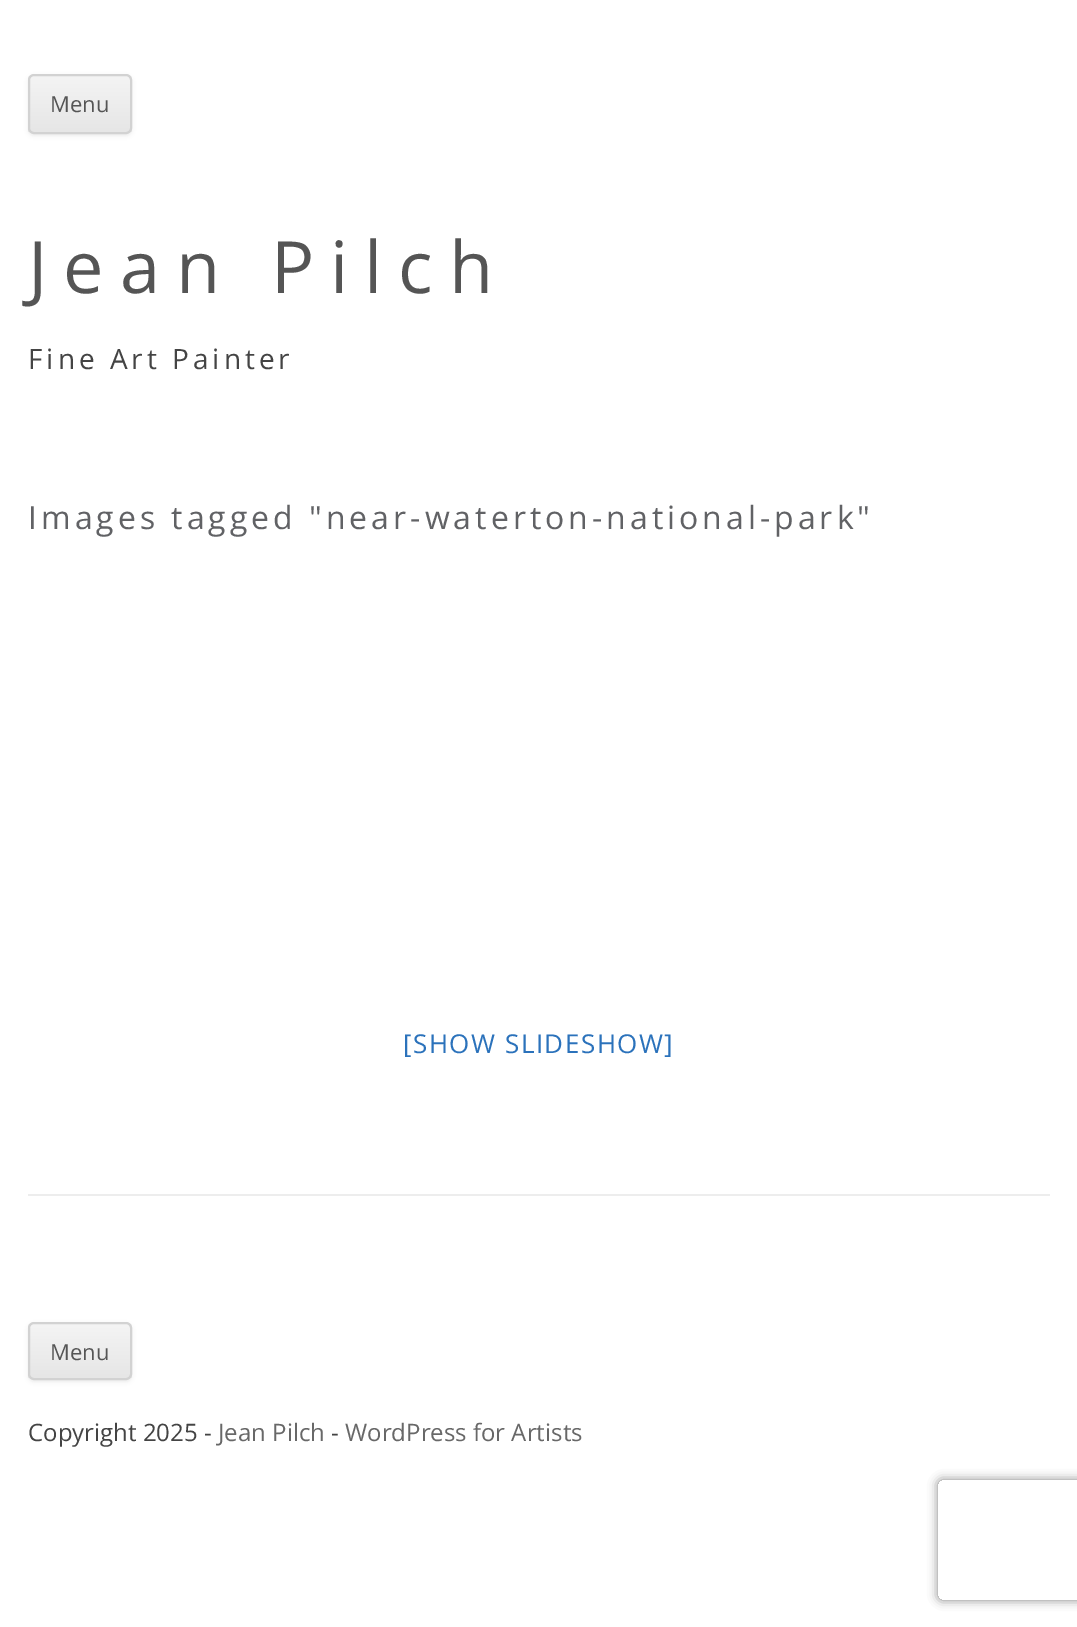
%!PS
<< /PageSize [1077 1627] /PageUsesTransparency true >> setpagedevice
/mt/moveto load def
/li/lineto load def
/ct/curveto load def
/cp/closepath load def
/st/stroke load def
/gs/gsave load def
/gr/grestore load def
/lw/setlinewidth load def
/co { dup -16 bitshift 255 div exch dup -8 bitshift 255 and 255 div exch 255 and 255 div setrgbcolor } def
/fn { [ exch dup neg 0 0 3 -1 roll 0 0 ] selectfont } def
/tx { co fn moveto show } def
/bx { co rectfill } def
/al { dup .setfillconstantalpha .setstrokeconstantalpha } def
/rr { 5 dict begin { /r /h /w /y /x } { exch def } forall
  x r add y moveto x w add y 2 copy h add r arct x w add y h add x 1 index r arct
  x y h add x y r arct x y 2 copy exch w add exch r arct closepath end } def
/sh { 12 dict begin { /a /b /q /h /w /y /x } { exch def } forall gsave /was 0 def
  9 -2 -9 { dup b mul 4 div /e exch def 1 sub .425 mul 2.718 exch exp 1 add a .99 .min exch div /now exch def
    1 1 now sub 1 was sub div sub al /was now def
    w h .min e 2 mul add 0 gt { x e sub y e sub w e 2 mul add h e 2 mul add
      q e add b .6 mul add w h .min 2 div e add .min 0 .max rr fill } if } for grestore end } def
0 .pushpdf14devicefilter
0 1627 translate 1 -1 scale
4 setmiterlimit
0 0 1077 1627 16#FFFFFF bx
16#404040 co
28 76 104 60 6 2 .1 sh
gs
28 74 104 60 6 rr clip newpath
gs 28 76 mt 132 76 li 132 132 li 28 132 li cp clip newpath
<< /ShadingType 2 /ColorSpace /DeviceRGB /Coords [80 76 80 132] /Extend [true true] /Function << /FunctionType 2 /Domain [0 1] /C0 [.957 .957 .957] /C1 [.902 .902 .902] /N 1 >> >> shfill gr
gr
16#D2D2D2 co
2 lw
29 75 102 58 5 rr st
28 1194 1022 2 16#EDEDED bx
16#404040 co
28 1324 104 58 6 2 .1 sh
gs
28 1322 104 58 6 rr clip newpath
gs 28 1324 mt 132 1324 li 132 1378 li 28 1378 li cp clip newpath
<< /ShadingType 2 /ColorSpace /DeviceRGB /Coords [80 1324 80 1378] /Extend [true true] /Function << /FunctionType 2 /Domain [0 1] /C0 [.957 .957 .957] /C1 [.902 .902 .902] /N 1 >> >> shfill gr
gr
16#D2D2D2 co
29 1323 102 56 5 rr st
gs
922 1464 mt 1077 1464 li 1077 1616 li 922 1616 li cp 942 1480 mt 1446 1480 li 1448 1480 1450 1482 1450 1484 ct 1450 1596 li 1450 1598 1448 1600 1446 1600 ct 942 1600 li 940 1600 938 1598 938 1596 ct 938 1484 li 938 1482 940 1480 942 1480 ct cp eoclip newpath
16#808080 co
938 1480 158 120 4 5 1 sh
gr
(Menu) 50 112 /OpenSans-Regular 22 16#555555 tx
/OpenSans-Regular 72 fn
28 293 mt 16 0 (Jean Pilch) ashow
/OpenSans-Regular 28 fn
16#444444 co
28 369 mt 4 0 (Fine Art Painter) ashow
/OpenSans-Regular 32 fn
16#616265 co
28 529 mt 4 0 (Images tagged "near-waterton-national-park") ashow
/OpenSans-Regular 26 fn
16#2B72BB co
403 1053 mt 1.5 0 ([SHOW SLIDESHOW]) ashow
(Menu) 50 1360 /OpenSans-Regular 22 16#555555 tx
(Copyright 2025 -) 28 1441 /OpenSans-Regular 24 16#444444 tx
(Jean Pilch) 218 1441 /OpenSans-Regular 24 16#686868 tx
(-) 331 1441 /OpenSans-Regular 24 16#444444 tx
(WordPress for Artists) 345 1441 /OpenSans-Regular 24 16#686868 tx
.poppdf14devicefilter showpage
